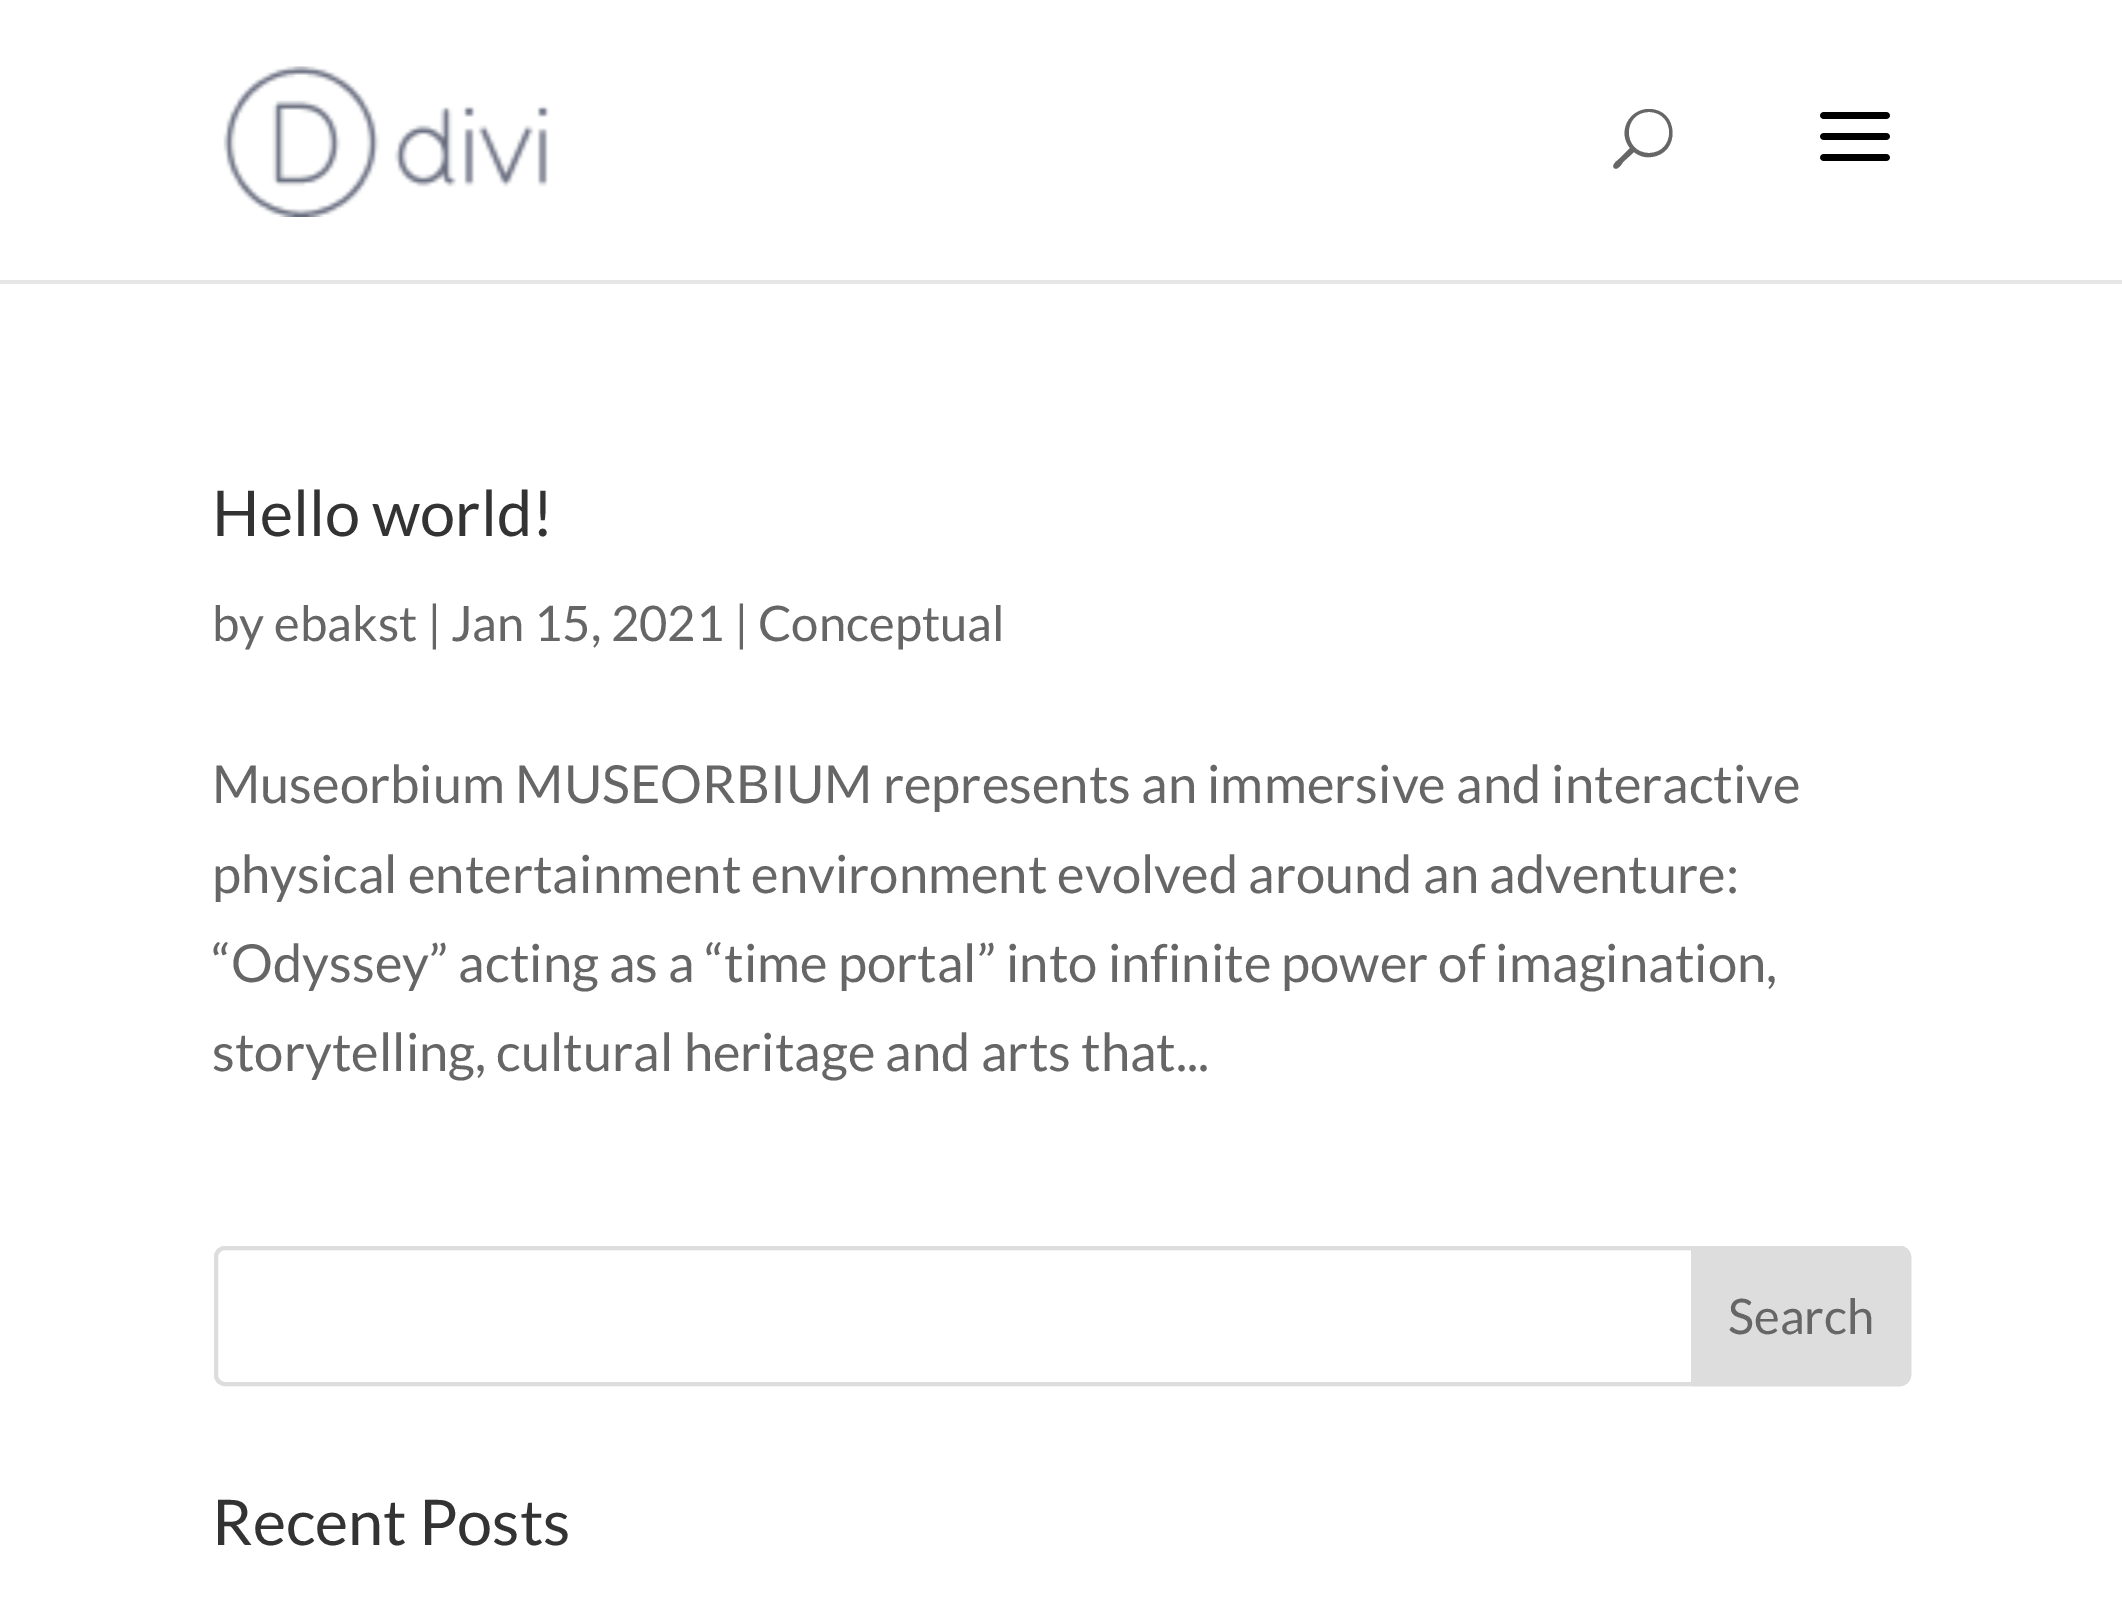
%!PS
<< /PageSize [2122 1606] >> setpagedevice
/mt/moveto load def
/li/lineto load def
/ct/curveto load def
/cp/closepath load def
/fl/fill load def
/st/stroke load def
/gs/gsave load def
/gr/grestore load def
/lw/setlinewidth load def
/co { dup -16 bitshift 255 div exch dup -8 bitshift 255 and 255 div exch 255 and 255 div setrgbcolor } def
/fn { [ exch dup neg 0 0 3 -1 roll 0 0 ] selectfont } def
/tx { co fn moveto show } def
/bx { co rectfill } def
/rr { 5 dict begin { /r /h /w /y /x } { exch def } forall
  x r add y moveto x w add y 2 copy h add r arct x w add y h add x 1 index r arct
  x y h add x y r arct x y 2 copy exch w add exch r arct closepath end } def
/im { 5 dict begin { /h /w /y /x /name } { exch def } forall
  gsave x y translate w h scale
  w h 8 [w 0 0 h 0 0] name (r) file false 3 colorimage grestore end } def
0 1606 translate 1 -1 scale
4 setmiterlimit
0 0 2122 1606 16#FFFFFF bx
16#E6E6E6 co
0 280 mt 0 284 li 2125 284 li 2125 4 li 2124 4 li 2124 280 li cp fl
(media/1.raw) 223 66 327 151 im
16#666666 co
1649 109 mt 1629 109 1617 132 1630 148 ct 1619 159 li 1618 160 1611 165 1614 168 ct 1617 171 1622 164 1623 162 ct 1634 152 li 1639 156 1645 158 1651 157 ct 1681 154 1679 109 1649 109 ct cp 1649 153 mt 1622 153 1622 112 1649 112 ct 1676 112 1676 153 1649 153 ct cp fl
(media/2.raw) 1820 112 70 49 im
16#DDDDDD co
4 lw
216 1248 1693 136 9 rr st
1693 1248 mt 1900 1248 li 1905 1248 1909 1252 1909 1257 ct 1909 1375 li 1909 1380 1905 1384 1900 1384 ct 1693 1384 li cp gs fl gr
st
(Hello world!) 212 536 /Lato-Regular 63 16#333333 tx
(by ebakst | Jan 15, 2021 | Conceptual) 212 641 /Lato-Regular 49 16#666666 tx
(Museorbium MUSEORBIUM represents an immersive and interactive) 212 803 /Lato-Regular 52.5 16#666666 tx
(physical entertainment environment evolved around an adventure:) 212 893 /Lato-Regular 52.5 16#666666 tx
(“Odyssey” acting as a “time portal” into infinite power of imagination,) 212 982 /Lato-Regular 52.5 16#666666 tx
(storytelling, cultural heritage and arts that...) 212 1071 /Lato-Regular 52.5 16#666666 tx
(Search) 1728 1334 /Lato-Regular 49 16#666666 tx
(Recent Posts) 212 1545 /Lato-Regular 63 16#333333 tx
showpage
